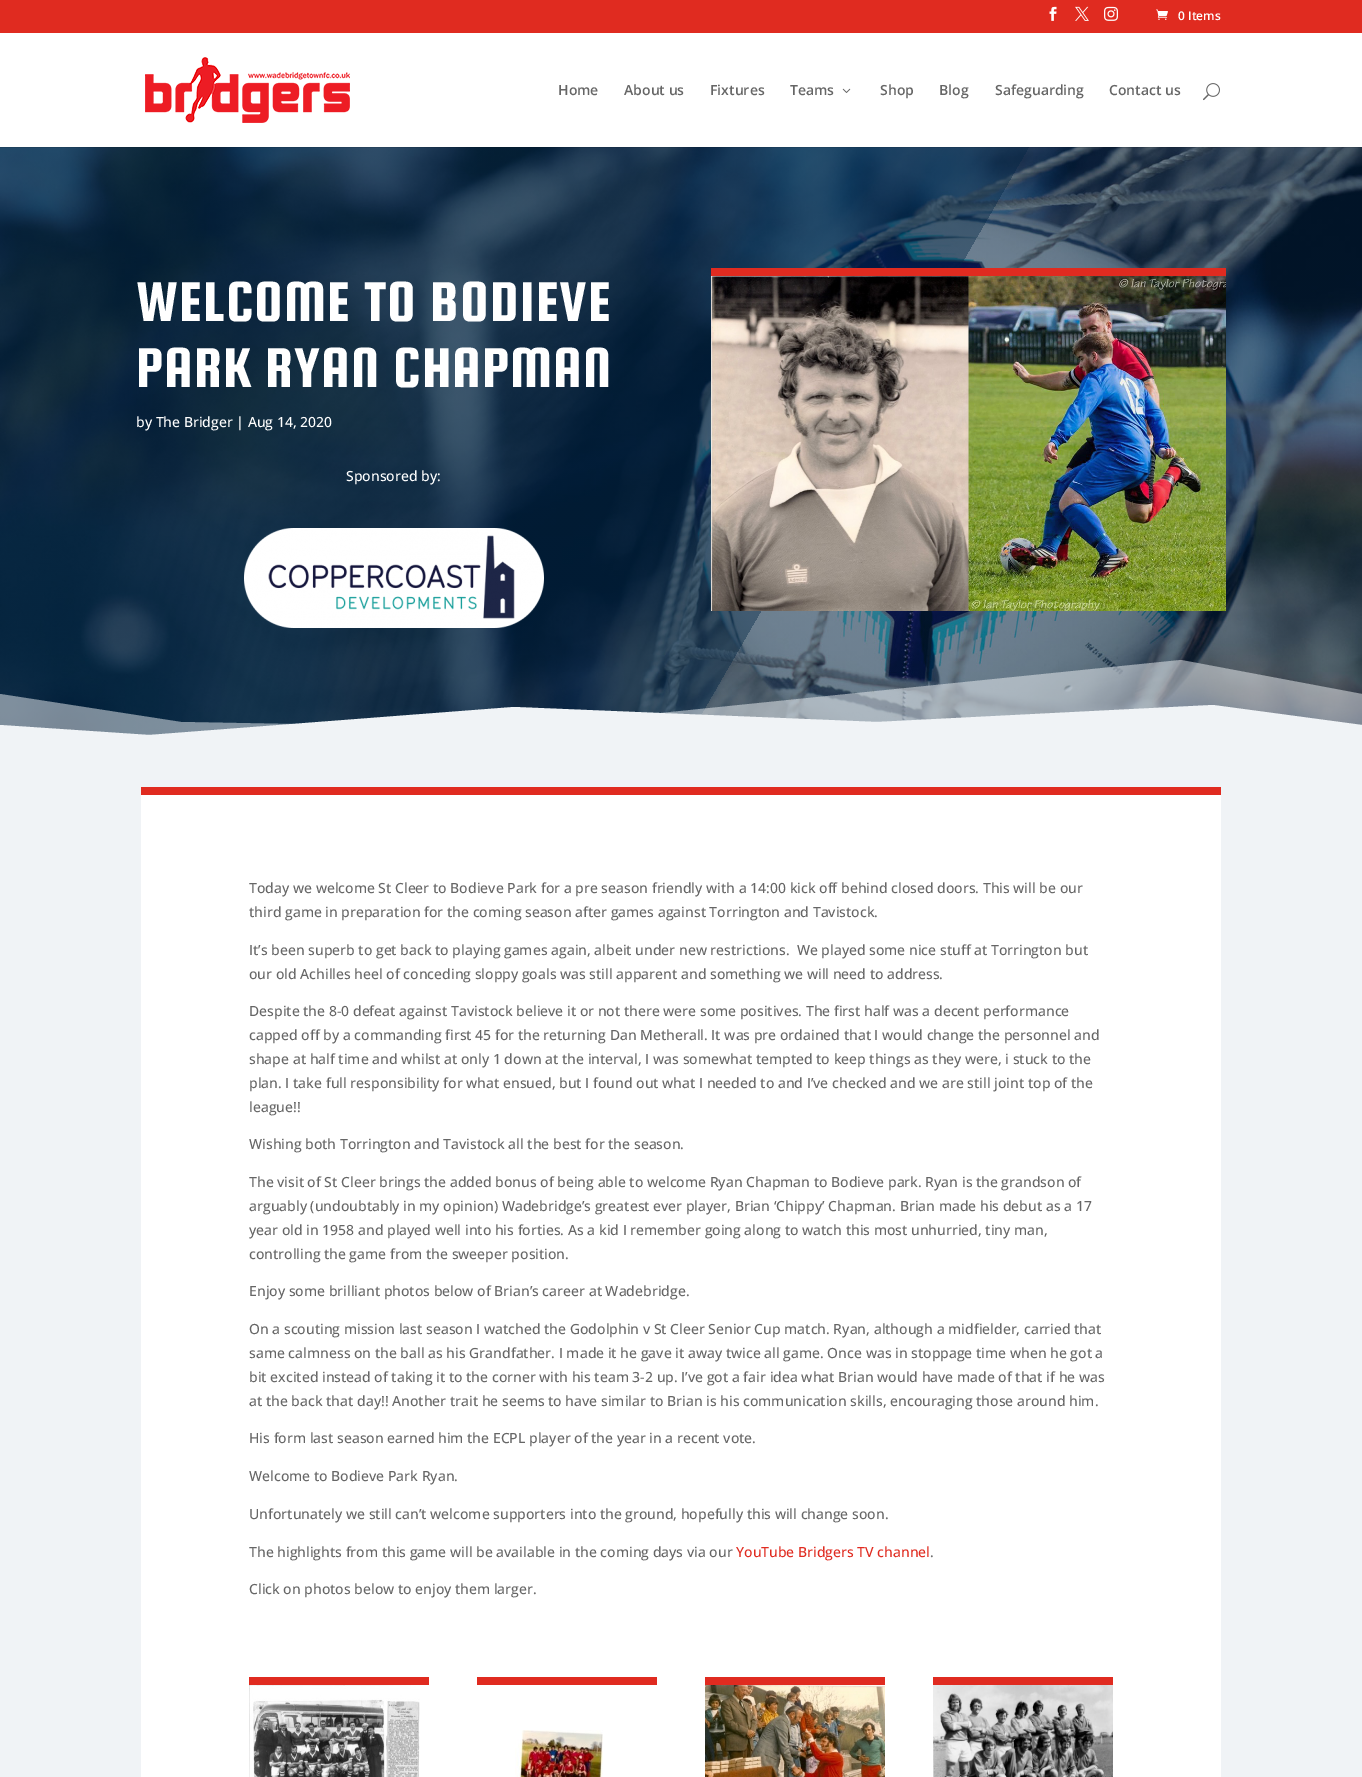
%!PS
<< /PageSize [1362 1777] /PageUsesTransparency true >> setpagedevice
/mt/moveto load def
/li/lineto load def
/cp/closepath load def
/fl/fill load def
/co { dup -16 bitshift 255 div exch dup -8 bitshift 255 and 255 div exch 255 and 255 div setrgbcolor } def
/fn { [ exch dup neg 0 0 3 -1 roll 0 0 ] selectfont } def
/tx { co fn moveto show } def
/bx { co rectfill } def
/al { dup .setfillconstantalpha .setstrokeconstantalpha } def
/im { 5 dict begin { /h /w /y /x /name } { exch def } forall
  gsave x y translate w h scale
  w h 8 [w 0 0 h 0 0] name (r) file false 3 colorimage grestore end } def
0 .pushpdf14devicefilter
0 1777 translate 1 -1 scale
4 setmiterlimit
0 0 1362 1777 16#FFFFFF bx
0 0 1362 33 16#E02B20 bx
(media/1.raw) 1049 6 8 15 im
(media/2.raw) 1075 6 14 15 im
(media/3.raw) 1104 6 14 15 im
(media/4.raw) 1156 9 12 11 im
(media/8.raw) 0 147 1362 588 im
0.1 al
0 147 1362 1 16#000000 bx
1 al
(media/5.raw) 145 57 205 66 im
(media/6.raw) 842 88 9 5 im
(media/7.raw) 1203 83 17 18 im
(media/9.raw) 244 528 300 100 im
711 268 515 8 16#E02B20 bx
(media/10.raw) 711 276 515 335 im
0.5 al
16#F0F3F6 co
1362 694 mt 1181 660 li 514 728 li 181 722 li 0 694 li 0 760 li 1362 760 li cp fl
1 al
1362 725 mt 1213 705 li 877 722 li 514 707 li 149 735 li 0 725 li 0 760 li 1362 760 li cp fl
0 760 1362 1017 16#F0F3F6 bx
141 787 1080 8 16#E02B20 bx
141 795 1080 982 16#FFFFFF bx
249 1677 180 8 16#E02B20 bx
(media/11.raw) 249 1685 171 92 im
477 1677 180 8 16#E02B20 bx
(media/12.raw) 515 1730 88 47 im
705 1677 180 8 16#E02B20 bx
(media/13.raw) 705 1685 180 92 im
933 1677 180 8 16#E02B20 bx
(media/14.raw) 933 1685 180 92 im
(0 Items) 1178 20 /OpenSans-SemiBold 12 16#FFFFFF tx
(Home) 558 95 /OpenSans-SemiBold 14 16#666666 tx
(About us) 624 95 /OpenSans-SemiBold 14 16#666666 tx
(Fixtures) 710 95 /OpenSans-SemiBold 14 16#666666 tx
(Teams) 790 95 /OpenSans-SemiBold 14 16#666666 tx
(Shop) 880 95 /OpenSans-SemiBold 14 16#666666 tx
(Blog) 939 95 /OpenSans-SemiBold 14 16#666666 tx
(Safeguarding) 995 95 /OpenSans-SemiBold 14 16#666666 tx
(Contact us) 1109 95 /OpenSans-SemiBold 14 16#666666 tx
/SquadaOne-Regular 60 fn
16#FFFFFF co
136 321 mt 1 0 (WELCOME TO BODIEVE) ashow
136 387 mt 1 0 (PARK RYAN CHAPMAN) ashow
(by The Bridger | Aug 14, 2020) 136 427 /OpenSans-Medium 14 16#FFFFFF tx
(Sponsored by:) 346 481 /OpenSans-Medium 14 16#FFFFFF tx
(Today we welcome St Cleer to Bodieve Park for a pre season friendly with a 14:00 kick off behind closed doors. This will be our) 249 893 /OpenSans-Medium 14 16#666666 tx
(third game in preparation for the coming season after games against Torrington and Tavistock.) 249 917 /OpenSans-Medium 14 16#666666 tx
(It’s been superb to get back to playing games again, albeit under new restrictions.  We played some nice stuff at Torrington but) 249 955 /OpenSans-Medium 14 16#666666 tx
(our old Achilles heel of conceding sloppy goals was still apparent and something we will need to address.) 249 979 /OpenSans-Medium 14 16#666666 tx
(Despite the 8-0 defeat against Tavistock believe it or not there were some positives. The first half was a decent performance) 249 1016 /OpenSans-Medium 14 16#666666 tx
(capped off by a commanding first 45 for the returning Dan Metherall. It was pre ordained that I would change the personnel and) 249 1040 /OpenSans-Medium 14 16#666666 tx
(shape at half time and whilst at only 1 down at the interval, I was somewhat tempted to keep things as they were, i stuck to the) 249 1064 /OpenSans-Medium 14 16#666666 tx
(plan. I take full responsibility for what ensued, but I found out what I needed to and I’ve checked and we are still joint top of the) 249 1088 /OpenSans-Medium 14 16#666666 tx
(league!!) 249 1112 /OpenSans-Medium 14 16#666666 tx
(Wishing both Torrington and Tavistock all the best for the season.) 249 1149 /OpenSans-Medium 14 16#666666 tx
(The visit of St Cleer brings the added bonus of being able to welcome Ryan Chapman to Bodieve park. Ryan is the grandson of) 249 1187 /OpenSans-Medium 14 16#666666 tx
(arguably \(undoubtably in my opinion\) Wadebridge’s greatest ever player, Brian ‘Chippy’ Chapman. Brian made his debut as a 17) 249 1211 /OpenSans-Medium 14 16#666666 tx
(year old in 1958 and played well into his forties. As a kid I remember going along to watch this most unhurried, tiny man,) 249 1235 /OpenSans-Medium 14 16#666666 tx
(controlling the game from the sweeper position.) 249 1259 /OpenSans-Medium 14 16#666666 tx
(Enjoy some brilliant photos below of Brian’s career at Wadebridge.) 249 1296 /OpenSans-Medium 14 16#666666 tx
(On a scouting mission last season I watched the Godolphin v St Cleer Senior Cup match. Ryan, although a midfielder, carried that) 249 1334 /OpenSans-Medium 14 16#666666 tx
(same calmness on the ball as his Grandfather. I made it he gave it away twice all game. Once was in stoppage time when he got a) 249 1358 /OpenSans-Medium 14 16#666666 tx
(bit excited instead of taking it to the corner with his team 3-2 up. I’ve got a fair idea what Brian would have made of that if he was) 249 1382 /OpenSans-Medium 14 16#666666 tx
(at the back that day!! Another trait he seems to have similar to Brian is his communication skills, encouraging those around him.) 249 1406 /OpenSans-Medium 14 16#666666 tx
(His form last season earned him the ECPL player of the year in a recent vote.) 249 1443 /OpenSans-Medium 14 16#666666 tx
(Welcome to Bodieve Park Ryan.) 249 1481 /OpenSans-Medium 14 16#666666 tx
(Unfortunately we still can’t welcome supporters into the ground, hopefully this will change soon.) 249 1519 /OpenSans-Medium 14 16#666666 tx
(The highlights from this game will be available in the coming days via our) 249 1557 /OpenSans-Medium 14 16#666666 tx
(YouTube Bridgers TV channel) 736 1557 /OpenSans-Medium 14 16#E02B20 tx
(.) 930 1557 /OpenSans-Medium 14 16#666666 tx
(Click on photos below to enjoy them larger.) 249 1594 /OpenSans-Medium 14 16#666666 tx
.poppdf14devicefilter showpage
